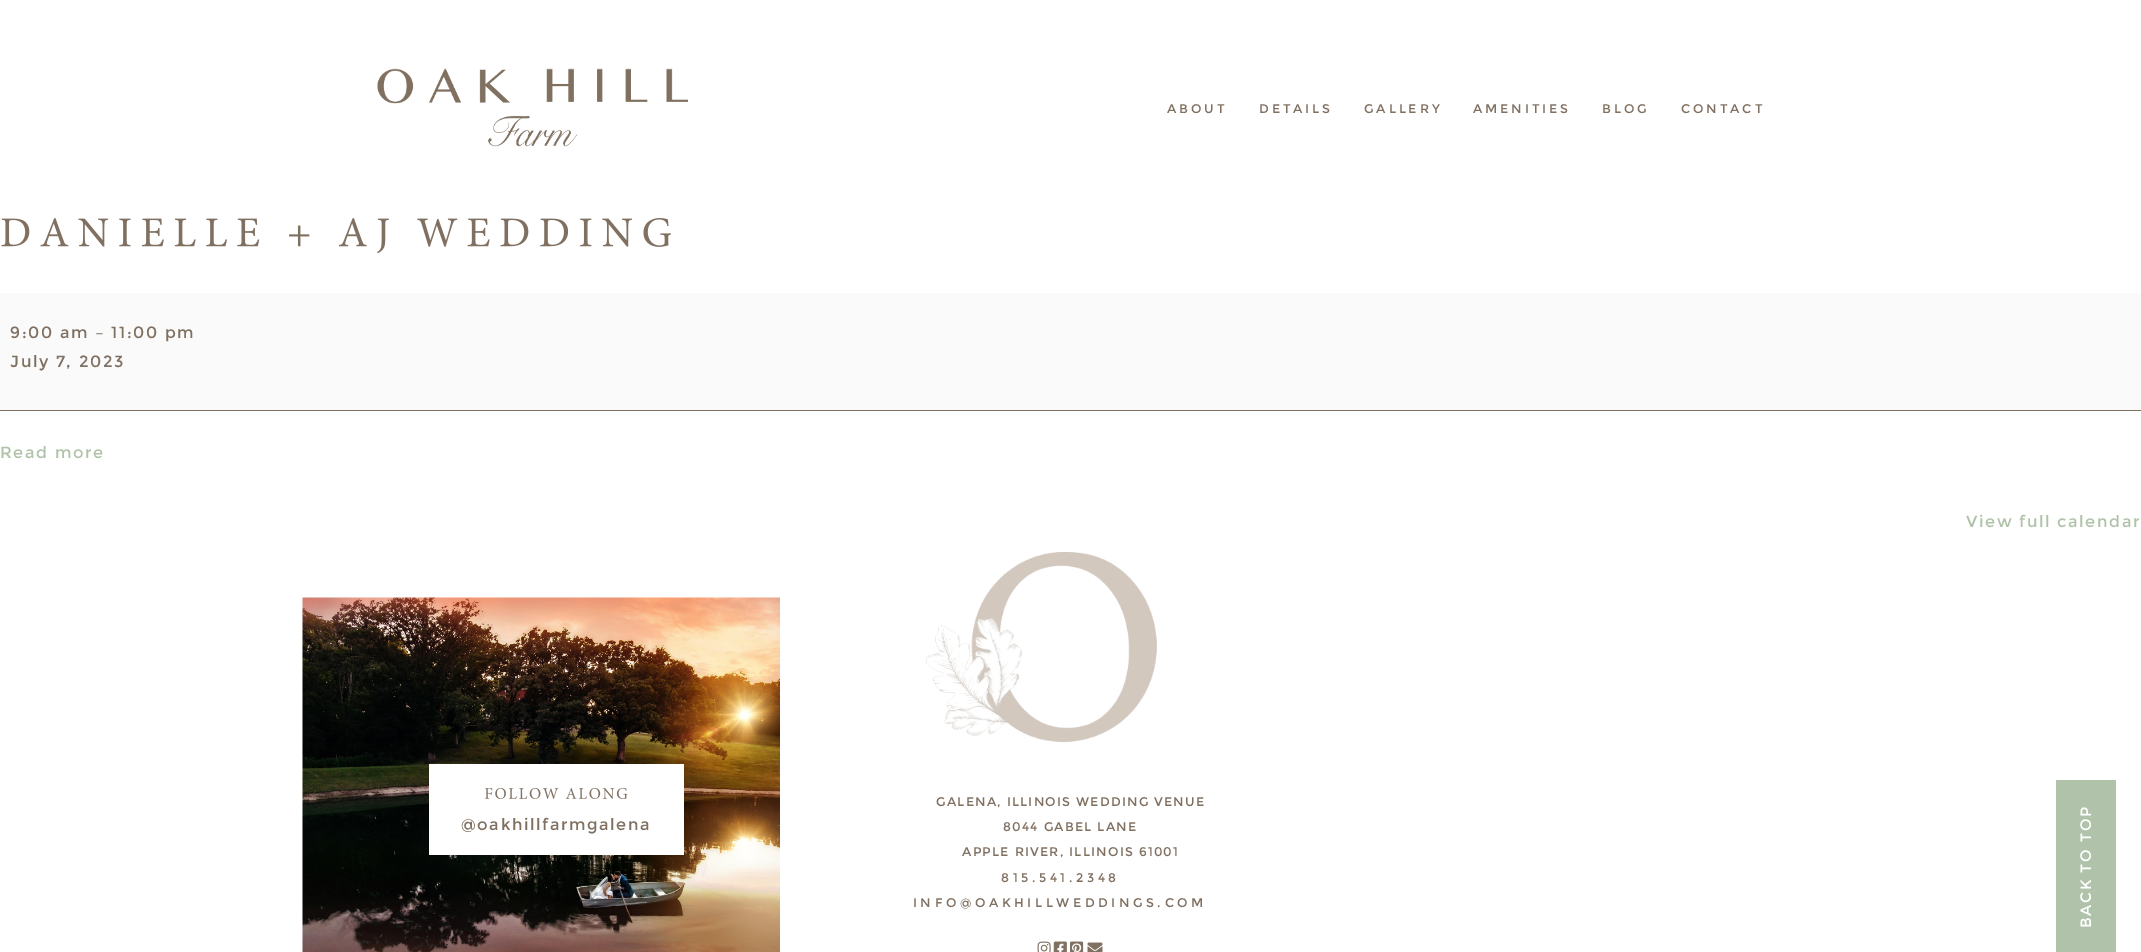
%!PS
<< /PageSize [2141 952] >> setpagedevice
/mt/moveto load def
/gs/gsave load def
/gr/grestore load def
/co { dup -16 bitshift 255 div exch dup -8 bitshift 255 and 255 div exch 255 and 255 div setrgbcolor } def
/fn { [ exch dup neg 0 0 3 -1 roll 0 0 ] selectfont } def
/bx { co rectfill } def
/im { 5 dict begin { /h /w /y /x /name } { exch def } forall
  gsave x y translate w h scale
  w h 8 [w 0 0 h 0 0] name (r) file false 3 colorimage grestore end } def
0 952 translate 1 -1 scale
4 setmiterlimit
0 0 2141 952 16#FFFFFF bx
(media/1.raw) 377 68 311 79 im
(media/2.raw) 1 218 670 36 im
0 293 2141 117 16#FAFAFA bx
0 410 2141 1 16#807061 bx
(media/3.raw) 302 597 478 355 im
429 764 255 91 16#FFFFFF bx
(media/4.raw) 485 787 143 12 im
(media/5.raw) 926 551 231 192 im
(media/6.raw) 1037 941 14 11 im
(media/7.raw) 1053 941 14 11 im
(media/8.raw) 1070 941 14 11 im
(media/9.raw) 1087 942 16 10 im
2056 780 60 172 16#B0C3AA bx
/Montserrat-Regular 12.5 fn
16#807061 co
1167 113 mt 2.9 0 (ABOUT) ashow
1259 113 mt 2.9 0 (DETAILS) ashow
1364 113 mt 2.9 0 (GALLERY) ashow
1473 113 mt 2.9 0 (AMENITIES) ashow
1602 113 mt 2.9 0 (BLOG) ashow
1681 113 mt 2.9 0 (CONTACT) ashow
/Montserrat-Regular 16.25 fn
10 338 mt 1.6 0 (9:00 am – 11:00 pm) ashow
10 367 mt 1.6 0 (July 7, 2023) ashow
16#B0C3AA co
0 458 mt 1.6 0 (Read more) ashow
1966 527 mt 1.6 0 (View full calendar) ashow
16#807061 co
461 830 mt 1.6 0 (@oakhillfarmgalena) ashow
/Montserrat-Regular 12.5 fn
936 806 mt 1.25 0 (GALENA, ILLINOIS WEDDING VENUE) ashow
1003 831 mt 1.25 0 (8044 GABEL LANE) ashow
962 856 mt 1.25 0 (APPLE RIVER, ILLINOIS 61001) ashow
1001 882 mt 3.6 0 (815.541.2348) ashow
913 907 mt 3.6 0 (INFO@OAKHILLWEDDINGS.COM) ashow
/Montserrat-Regular 15 fn
16#FFFFFF co
gs 2091 928 translate -90 rotate 0 0 mt 1.6 0 (BACK TO TOP) ashow gr
showpage
